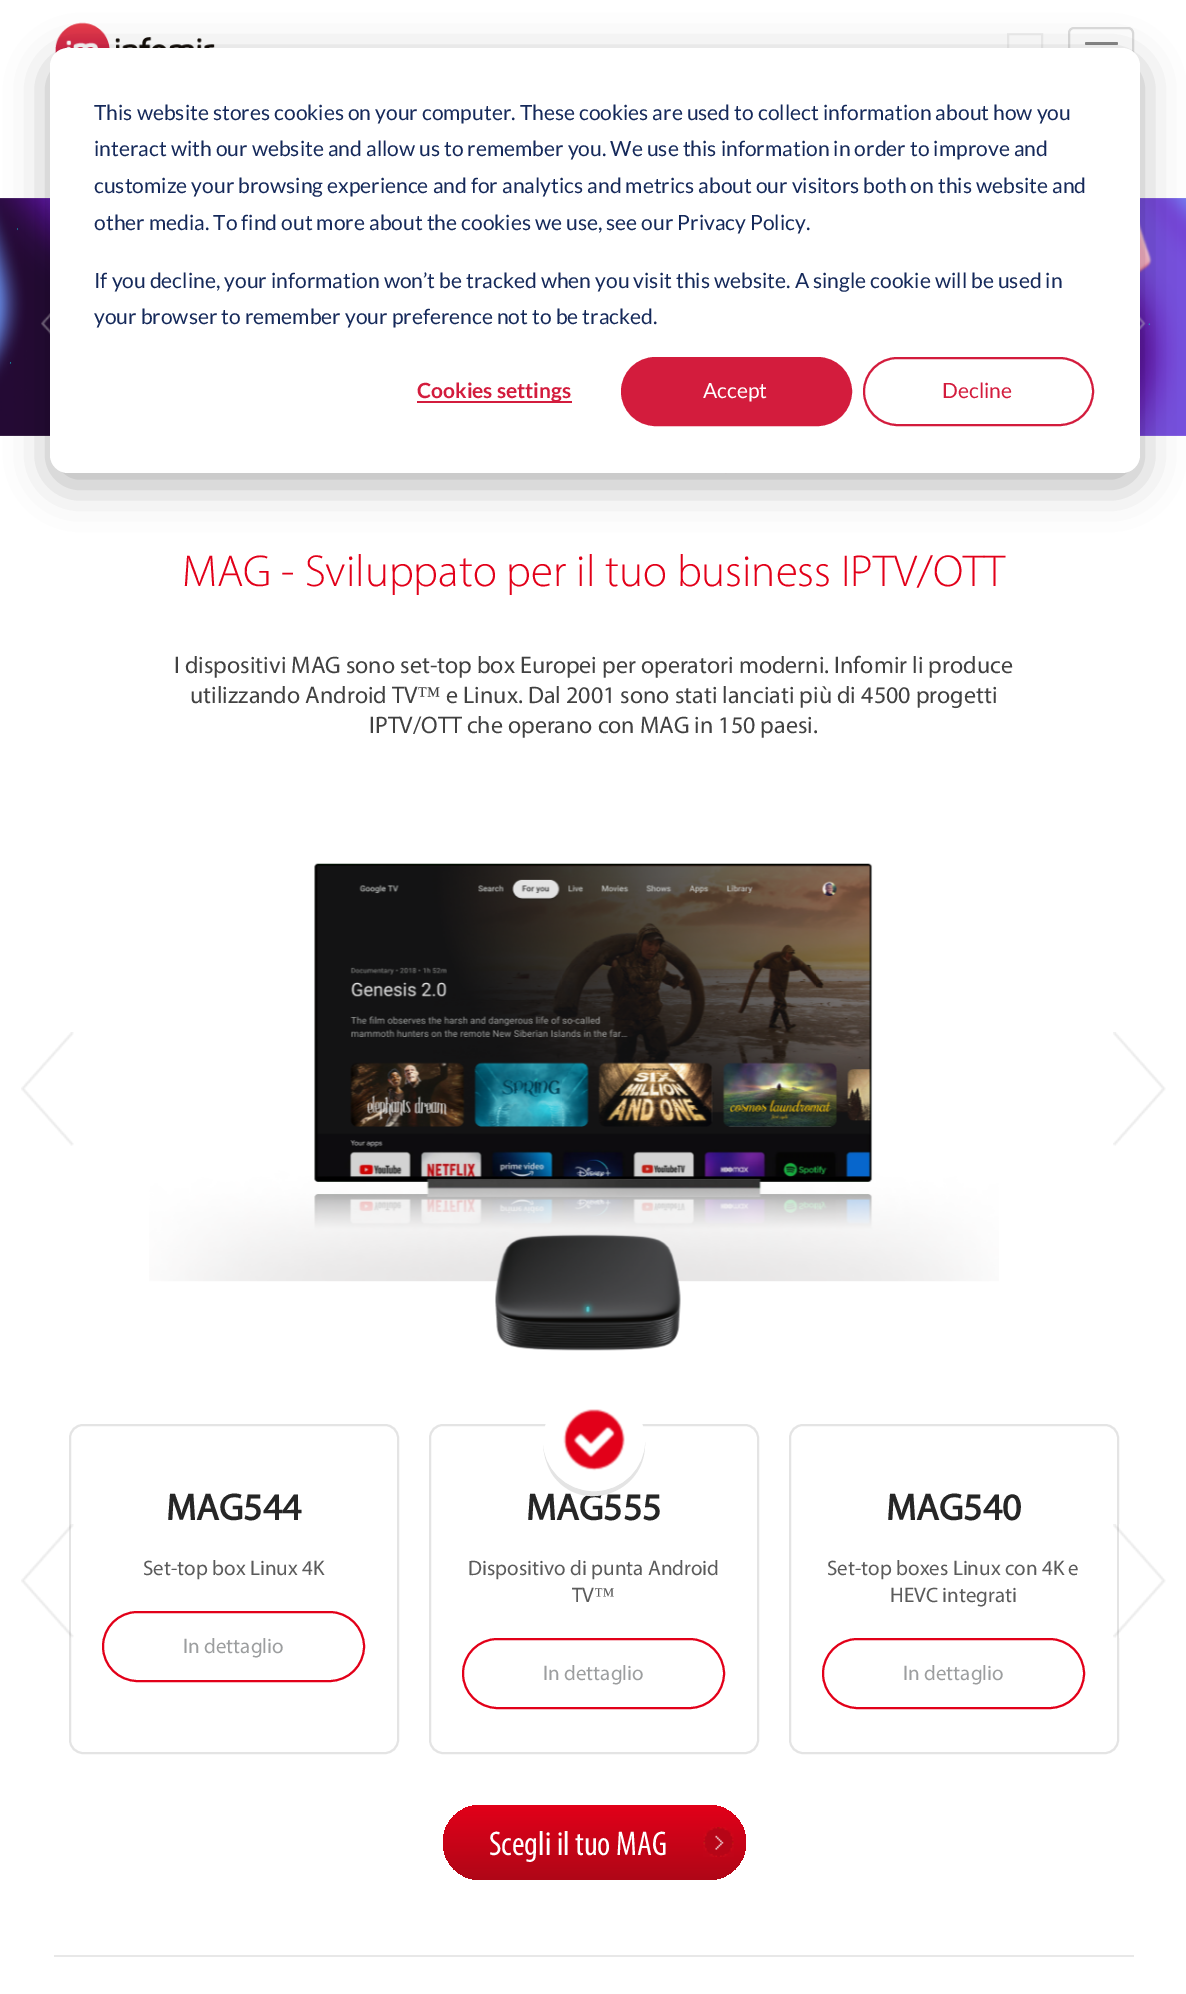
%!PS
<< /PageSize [1186 1994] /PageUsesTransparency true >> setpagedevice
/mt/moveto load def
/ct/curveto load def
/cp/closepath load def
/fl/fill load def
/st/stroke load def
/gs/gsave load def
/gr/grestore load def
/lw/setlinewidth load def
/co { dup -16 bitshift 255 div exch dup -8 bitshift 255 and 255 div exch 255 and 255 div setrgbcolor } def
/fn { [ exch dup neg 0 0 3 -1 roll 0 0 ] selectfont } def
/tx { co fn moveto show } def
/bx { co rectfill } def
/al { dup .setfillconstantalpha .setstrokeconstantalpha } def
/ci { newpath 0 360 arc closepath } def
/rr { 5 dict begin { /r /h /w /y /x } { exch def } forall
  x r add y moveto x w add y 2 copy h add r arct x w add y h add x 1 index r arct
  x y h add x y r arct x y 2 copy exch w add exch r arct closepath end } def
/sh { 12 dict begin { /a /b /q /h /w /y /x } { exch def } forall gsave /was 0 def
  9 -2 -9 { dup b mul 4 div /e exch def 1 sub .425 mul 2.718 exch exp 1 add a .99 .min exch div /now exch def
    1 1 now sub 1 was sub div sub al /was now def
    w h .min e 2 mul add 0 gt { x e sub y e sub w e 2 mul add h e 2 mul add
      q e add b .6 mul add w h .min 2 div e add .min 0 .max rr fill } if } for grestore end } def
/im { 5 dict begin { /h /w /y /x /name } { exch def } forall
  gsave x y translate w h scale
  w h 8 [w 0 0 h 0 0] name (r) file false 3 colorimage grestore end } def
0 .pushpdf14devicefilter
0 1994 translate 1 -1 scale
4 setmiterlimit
0 0 1186 1994 16#FFFFFF bx
(media/1.raw) 55 22 160 32 im
16#F0F0F0 co
2 lw
1008 34 34 25 rectstroke
16#DDDDDD co
1069 28 64 49 5 rr st
16#888888 co
1085 42 33 3 1.5 rr fl
(media/2.raw) 0 179 1186 295 im
(media/3.raw) 41 313 9 22 im
(media/4.raw) 1140 316 6 14 im
16#000000 co
50 60 1090 425 18 21 .28 sh
16#FFFFFF co
50 48 1090 425 18 rr fl
417 401 155 2 16#D31C3D bx
622 358 229 67 33.5 rr gs fl gr
st
864 358 229 67 33.5 rr st
54 1955 1080 2 16#E8E8E8 bx
(media/5.raw) 21 1032 53 114 im
(media/6.raw) 149 863 850 488 im
(media/7.raw) 1113 1032 53 114 im
16#E4E4E4 co
70 1425 328 328 13 rr st
(media/8.raw) 21 1524 53 114 im
16#E20019 co
103 1612 261 69 34.5 rr st
16#E4E4E4 co
430 1425 328 328 13 rr st
16#E20019 co
463 1639 261 69 34.5 rr st
16#E4E4E4 co
790 1425 328 328 13 rr st
16#E20019 co
823 1639 261 69 34.5 rr st
(media/10.raw) 1113 1524 53 114 im
gs 443 1805 303 75 37.5 rr clip newpath
<< /ShadingType 2 /ColorSpace /DeviceRGB /Coords [594 1805 594 1880] /Extend [true true] /Function << /FunctionType 2 /Domain [0 1] /C0 [.886 0 .098] /C1 [.686 .027 .09] /N 1 >> >> shfill gr
(media/11.raw) 703 1827 31 30 im
(This website stores cookies on your computer. These cookies are used to collect information about how you) 94 120 /Lato-Regular 21 16#15295A tx
(interact with our website and allow us to remember you. We use this information in order to improve and) 94 156 /Lato-Regular 21 16#15295A tx
(customize your browsing experience and for analytics and metrics about our visitors both on this website and) 94 193 /Lato-Regular 21 16#15295A tx
(other media. To find out more about the cookies we use, see our Privacy Policy.) 94 230 /Lato-Regular 21 16#15295A tx
(If you decline, your information won’t be tracked when you visit this website. A single cookie will be used in) 94 288 /Lato-Regular 21 16#15295A tx
(your browser to remember your preference not to be tracked.) 94 324 /Lato-Regular 21 16#15295A tx
(Cookies settings) 417 398 /Lato-Bold 21 16#D31C3D tx
(Accept) 703 398 /Lato-Regular 21 16#FFFFFF tx
(Decline) 942 398 /Lato-Regular 21 16#D31C3D tx
(MAG - Sviluppato per il tuo business IPTV/OTT) 182 586 /Myriad-Light 45 16#E20019 tx
(I dispositivi MAG sono set-top box Europei per operatori moderni. Infomir li produce) 174 673 /Myriad-Regular 24 16#414141 tx
(utilizzando Android TV) 190 703 /Myriad-Regular 24 16#414141 tx
(™) 417 703 /LiberationSerif-Regular 24 16#414141 tx
(e Linux. Dal 2001 sono stati lanciati più di 4500 progetti) 446 703 /Myriad-Regular 24 16#414141 tx
(IPTV/OTT che operano con MAG in 150 paesi.) 369 733 /Myriad-Regular 24 16#414141 tx
(MAG544) 166 1520 /Myriad-Bold 37.5 16#262626 tx
(Set-top box Linux 4K) 143 1575 /Myriad-Regular 21 16#5B5B5B tx
(In dettaglio) 183 1653 /Myriad-Regular 21 16#9C9E9F tx
(MAG555) 526 1520 /Myriad-Bold 37.5 16#262626 tx
16#E4E4E4 co
543 1442 mt 543 1453 546 1464 552 1474 ct 580 1516 647 1494 645 1442 ct 644 1470 621 1491 594 1491 ct 567 1491 544 1470 543 1442 ct cp fl
gs
54 1409 1080 345 rectclip
16#FFFFFF co
594 1440 40.5 ci gs fl gr
21 lw
st
gr
(media/9.raw) 563 1409 62 62 im
(Dispositivo di punta Android) 468 1575 /Myriad-Regular 21 16#5B5B5B tx
(TV) 572 1602 /Myriad-Regular 21 16#5B5B5B tx
(™) 594 1602 /LiberationSerif-Regular 21 16#5B5B5B tx
(In dettaglio) 543 1680 /Myriad-Regular 21 16#9C9E9F tx
(MAG540) 886 1520 /Myriad-Bold 37.5 16#262626 tx
(Set-top boxes Linux con 4K e) 827 1575 /Myriad-Regular 21 16#5B5B5B tx
(HEVC integrati) 890 1602 /Myriad-Regular 21 16#5B5B5B tx
(In dettaglio) 903 1680 /Myriad-Regular 21 16#9C9E9F tx
(Scegli il tuo MAG) 489 1855 /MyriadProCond-Regular 34.5 16#FFFFFF tx
.poppdf14devicefilter showpage
